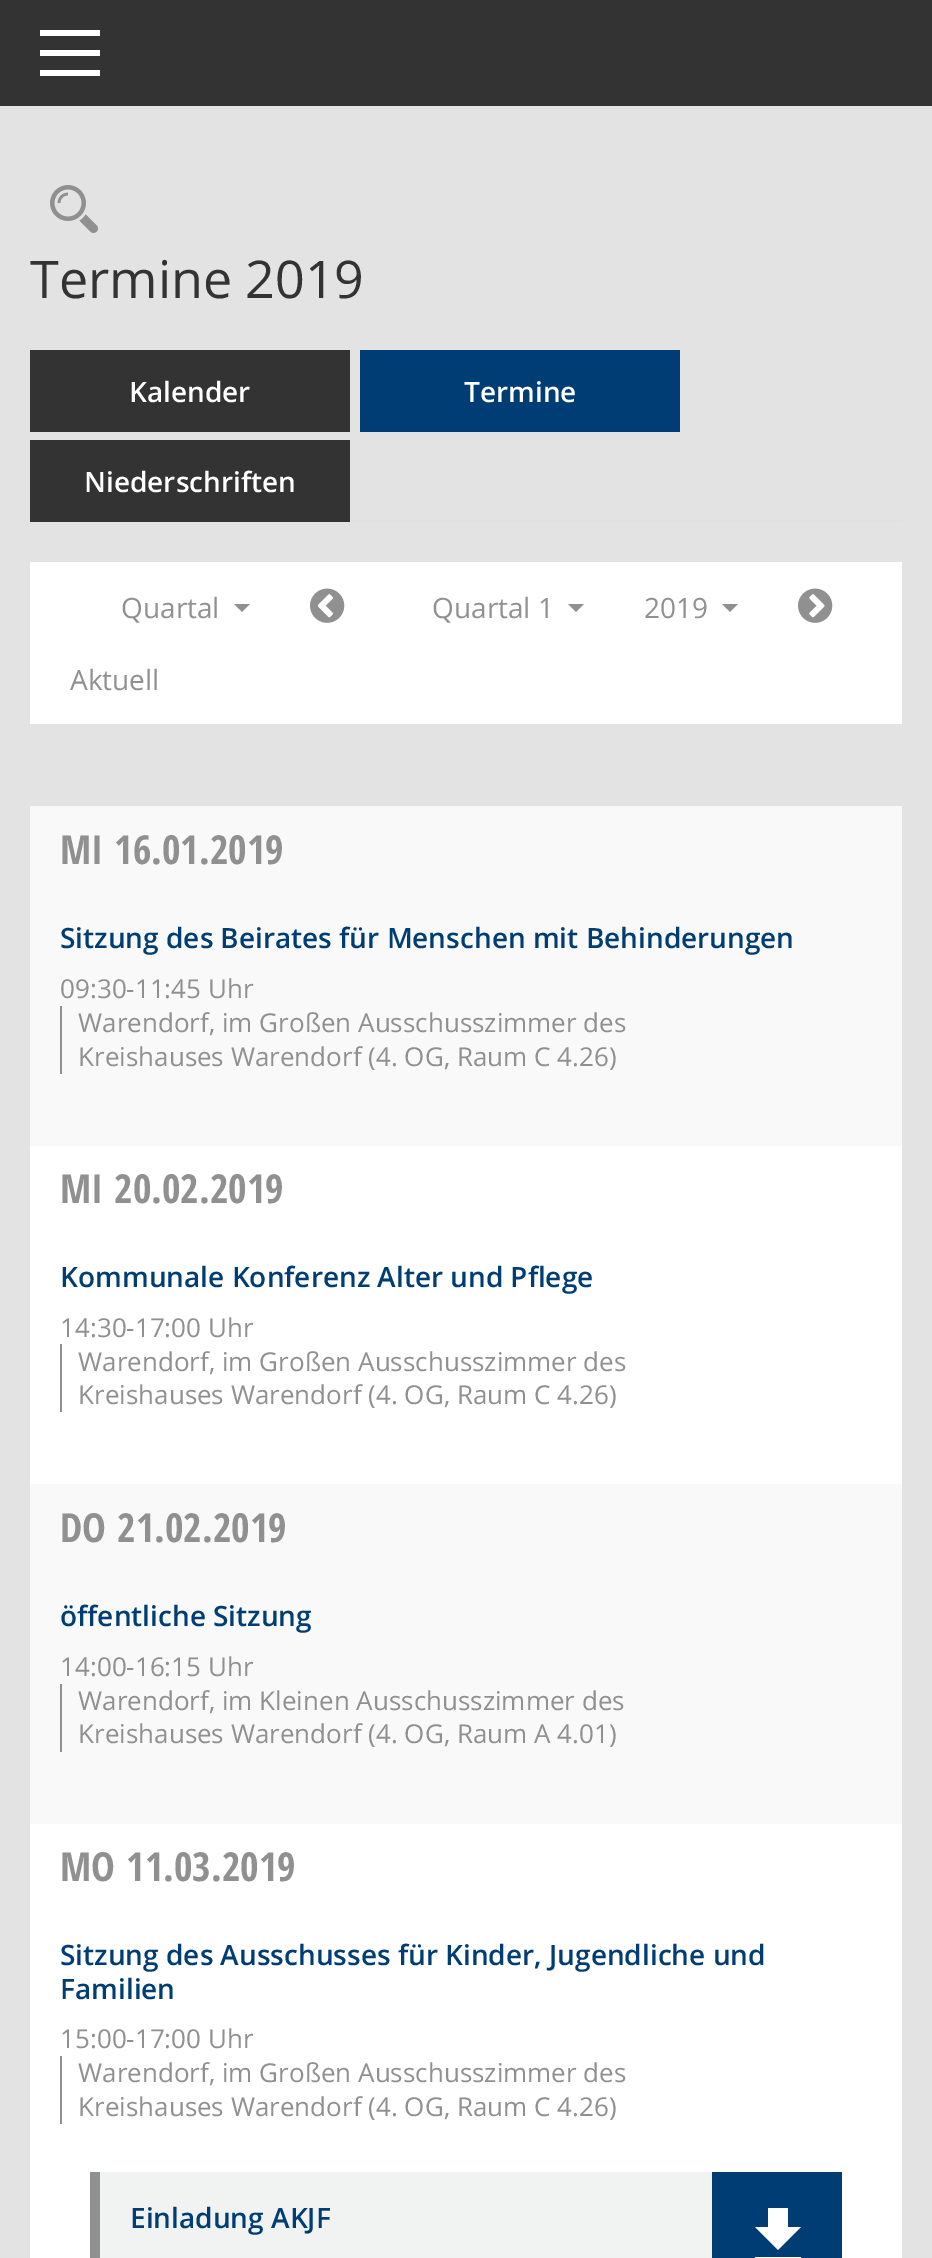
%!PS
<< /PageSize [932 2258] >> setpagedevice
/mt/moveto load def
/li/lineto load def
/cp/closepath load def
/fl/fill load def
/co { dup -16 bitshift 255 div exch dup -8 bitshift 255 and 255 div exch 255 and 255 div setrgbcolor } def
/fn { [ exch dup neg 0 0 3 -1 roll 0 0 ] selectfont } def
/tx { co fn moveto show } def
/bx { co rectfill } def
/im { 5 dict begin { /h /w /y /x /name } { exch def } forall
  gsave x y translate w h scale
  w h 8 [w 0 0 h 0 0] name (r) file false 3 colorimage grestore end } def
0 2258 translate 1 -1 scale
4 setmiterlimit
0 0 932 2258 16#E3E3E3 bx
0 0 932 106 16#333333 bx
40 30 60 6 16#FFFFFF bx
40 50 60 6 16#FFFFFF bx
40 70 60 6 16#FFFFFF bx
(media/1.raw) 50 185 48 48 im
350 520 552 2 16#DEE2E6 bx
30 350 320 82 16#333333 bx
360 350 320 82 16#003D74 bx
30 440 320 82 16#333333 bx
30 562 872 162 16#FFFFFF bx
16#909090 co
234 604 mt 250 604 li 242 612 li cp fl
(media/2.raw) 310 588 35 35 im
568 604 mt 584 604 li 576 612 li cp fl
722 604 mt 738 604 li 730 612 li cp fl
(media/3.raw) 798 588 35 35 im
30 1146 872 1112 16#FFFFFF bx
30 806 872 340 16#F9F9F9 bx
60 1006 2 68 16#909090 bx
60 1344 2 68 16#909090 bx
30 1484 872 340 16#F9F9F9 bx
60 1684 2 68 16#909090 bx
60 2056 2 68 16#909090 bx
100 2172 612 86 16#F0F3F2 bx
90 2172 10 86 16#909090 bx
712 2172 130 86 16#003D74 bx
16#FFFFFF co
801 2227 mt 788 2227 li 788 2208 li 768 2208 li 768 2227 li 755 2227 li 778 2250 li cp 755 2257 mt 755 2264 li 801 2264 li 801 2257 li cp fl
(Termine 2019) 30 298 /OpenSans-Regular 52 16#333333 tx
(Kalender) 129 402 /OpenSans-SemiBold 28 16#FFFFFF tx
(Termine) 464 402 /OpenSans-SemiBold 28 16#FFFFFF tx
(Niederschriften) 84 492 /OpenSans-SemiBold 28 16#FFFFFF tx
(Quartal) 121 618 /OpenSans-Regular 28 16#909090 tx
(Quartal 1) 432 618 /OpenSans-Regular 28 16#909090 tx
(2019) 644 618 /OpenSans-Regular 28 16#909090 tx
(Aktuell) 70 690 /OpenSans-Regular 28 16#909090 tx
(MI) 60 864 /OpenSansCondensed-Bold 40 16#909090 tx
(16.01.2019) 114 864 /OpenSansCondensed-Bold 40 16#909090 tx
(Sitzung des Beirates für Menschen mit Behinderungen) 60 948 /OpenSans-SemiBold 28 16#003D74 tx
(09:30-11:45 Uhr) 60 998 /OpenSans-Regular 26 16#909090 tx
(Warendorf, im Großen Ausschusszimmer des) 78 1032 /OpenSans-Regular 26 16#909090 tx
(Kreishauses Warendorf \(4. OG, Raum C 4.26\)) 78 1066 /OpenSans-Regular 26 16#909090 tx
(MI) 60 1203 /OpenSansCondensed-Bold 40 16#909090 tx
(20.02.2019) 114 1203 /OpenSansCondensed-Bold 40 16#909090 tx
(Kommunale Konferenz Alter und Pflege) 60 1287 /OpenSans-SemiBold 28 16#003D74 tx
(14:30-17:00 Uhr) 60 1337 /OpenSans-Regular 26 16#909090 tx
(Warendorf, im Großen Ausschusszimmer des) 78 1371 /OpenSans-Regular 26 16#909090 tx
(Kreishauses Warendorf \(4. OG, Raum C 4.26\)) 78 1404 /OpenSans-Regular 26 16#909090 tx
(DO) 60 1542 /OpenSansCondensed-Bold 40 16#909090 tx
(21.02.2019) 117 1542 /OpenSansCondensed-Bold 40 16#909090 tx
(öffentliche Sitzung) 60 1626 /OpenSans-SemiBold 28 16#003D74 tx
(14:00-16:15 Uhr) 60 1676 /OpenSans-Regular 26 16#909090 tx
(Warendorf, im Kleinen Ausschusszimmer des) 78 1710 /OpenSans-Regular 26 16#909090 tx
(Kreishauses Warendorf \(4. OG, Raum A 4.01\)) 78 1743 /OpenSans-Regular 26 16#909090 tx
(MO) 60 1881 /OpenSansCondensed-Bold 40 16#909090 tx
(11.03.2019) 126 1881 /OpenSansCondensed-Bold 40 16#909090 tx
(Sitzung des Ausschusses für Kinder, Jugendliche und) 60 1965 /OpenSans-SemiBold 28 16#003D74 tx
(Familien) 60 1999 /OpenSans-SemiBold 28 16#003D74 tx
(15:00-17:00 Uhr) 60 2048 /OpenSans-Regular 26 16#909090 tx
(Warendorf, im Großen Ausschusszimmer des) 78 2082 /OpenSans-Regular 26 16#909090 tx
(Kreishauses Warendorf \(4. OG, Raum C 4.26\)) 78 2116 /OpenSans-Regular 26 16#909090 tx
(Einladung AKJF) 130 2228 /OpenSans-SemiBold 28 16#003D74 tx
showpage
